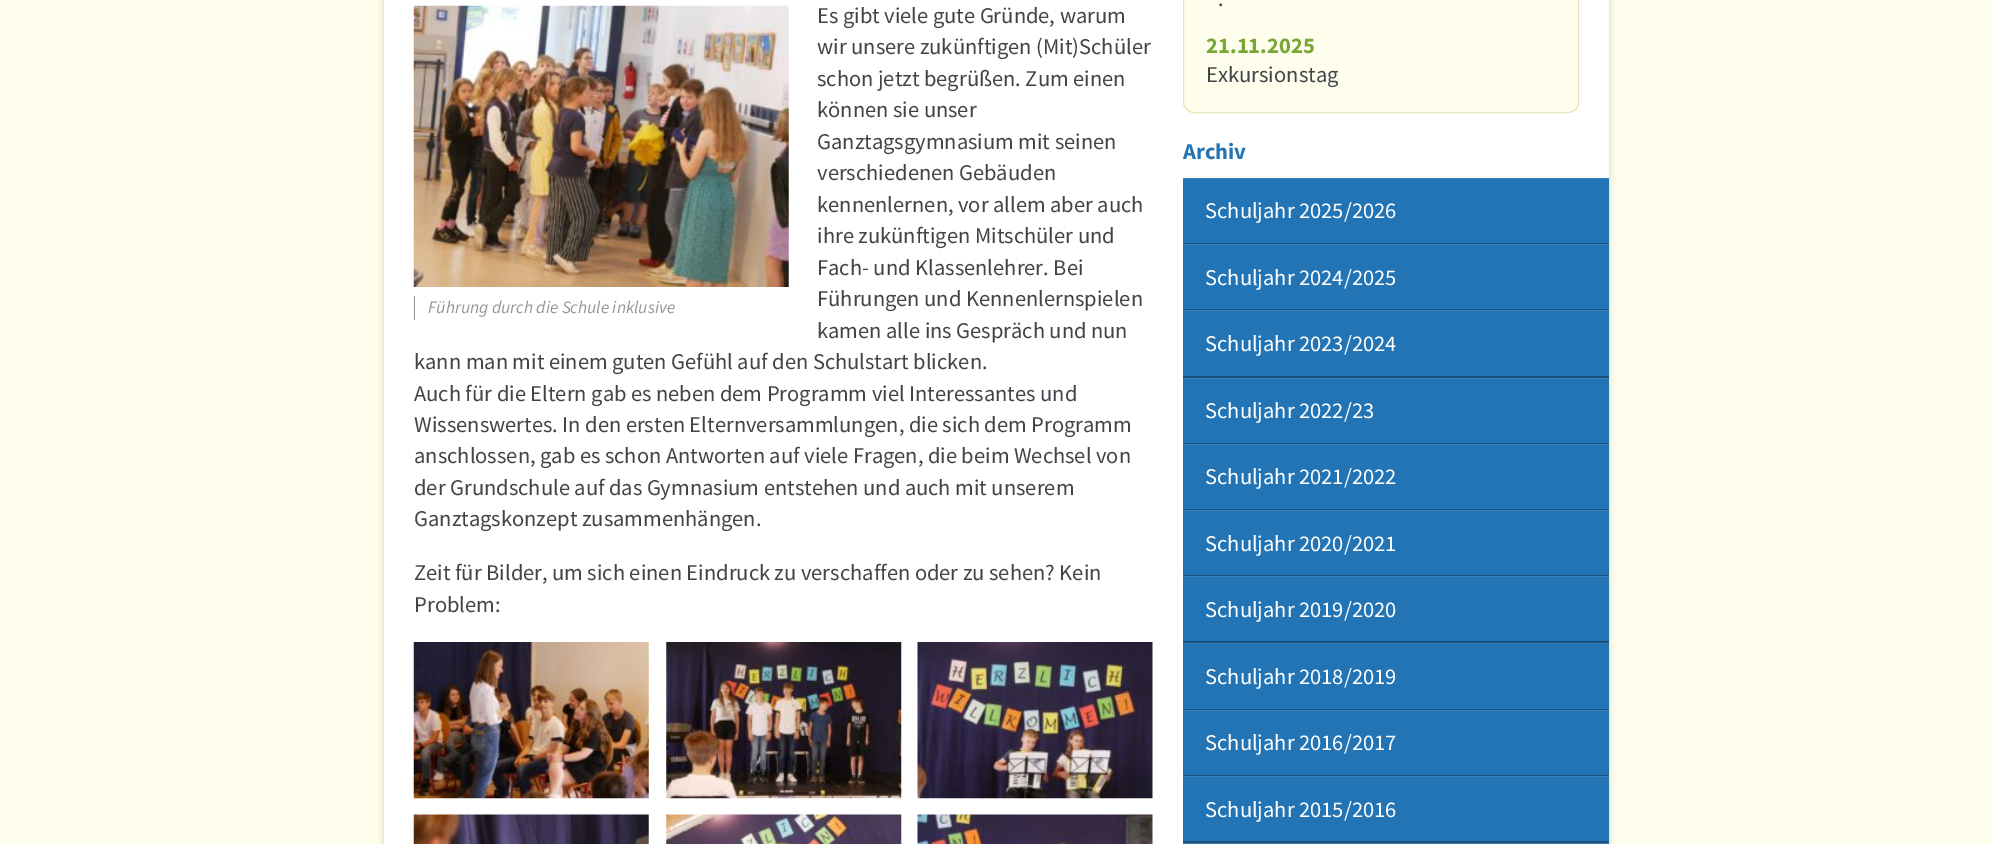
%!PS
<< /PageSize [1992 844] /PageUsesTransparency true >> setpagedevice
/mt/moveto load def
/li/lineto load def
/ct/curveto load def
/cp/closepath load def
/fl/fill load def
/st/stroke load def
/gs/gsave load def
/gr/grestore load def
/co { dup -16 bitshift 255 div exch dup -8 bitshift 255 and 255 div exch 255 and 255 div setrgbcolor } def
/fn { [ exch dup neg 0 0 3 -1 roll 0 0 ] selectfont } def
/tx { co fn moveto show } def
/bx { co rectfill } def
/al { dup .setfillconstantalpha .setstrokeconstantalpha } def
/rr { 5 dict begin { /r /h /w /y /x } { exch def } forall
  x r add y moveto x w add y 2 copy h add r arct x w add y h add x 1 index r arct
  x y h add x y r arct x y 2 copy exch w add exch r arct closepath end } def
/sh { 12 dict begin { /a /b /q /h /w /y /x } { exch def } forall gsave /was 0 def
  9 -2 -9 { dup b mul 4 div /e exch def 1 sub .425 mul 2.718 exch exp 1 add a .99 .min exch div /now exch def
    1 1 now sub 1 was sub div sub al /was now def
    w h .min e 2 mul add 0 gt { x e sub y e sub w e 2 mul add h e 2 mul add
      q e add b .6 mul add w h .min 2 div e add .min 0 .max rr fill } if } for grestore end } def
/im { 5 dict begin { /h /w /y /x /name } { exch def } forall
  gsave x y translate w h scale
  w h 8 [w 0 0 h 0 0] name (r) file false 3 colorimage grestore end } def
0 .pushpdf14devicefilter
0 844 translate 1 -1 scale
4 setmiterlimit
0 0 1992 844 16#FFFEEC bx
16#6A3A0F co
384 -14 1225 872 5 3 .25 sh
384 0 1225 844 16#FFFFFF bx
(media/1.raw) 413 5 376 282 im
414 296 1 24 16#969696 bx
(media/2.raw) 413 642 236 157 im
(media/3.raw) 666 642 236 157 im
(media/4.raw) 917 642 236 157 im
(media/5.raw) 413 814 236 30 im
(media/6.raw) 666 814 236 30 im
(media/7.raw) 917 814 236 30 im
16#FFFEEC co
1183.5 -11.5 mt 1578.5 -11.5 li 1578.5 102 li 1578.5 108 1574 112.5 1568 112.5 ct 1194 112.5 li 1188 112.5 1183.5 108 1183.5 102 ct cp gs fl gr
16#E7E4B7 co
st
16#1A5079 co
1183 242 mt 1183 244 li 1609 244 li 1609 179 li 1609 242 li cp fl
1183 179 426 64 16#2374B4 bx
1183 178 426 1 16#3982BC bx
16#1A5079 co
1183 309 mt 1183 310 li 1609 310 li 1609 245 li 1609 309 li cp fl
1183 245 426 64 16#2374B4 bx
1183 244 426 1 16#3982BC bx
16#1A5079 co
1183 376 mt 1183 378 li 1609 378 li 1609 311 li 1609 376 li cp fl
1183 311 426 65 16#2374B4 bx
1183 310 426 1 16#3982BC bx
16#1A5079 co
1183 442 mt 1183 444 li 1609 444 li 1609 379 li 1609 442 li cp fl
1183 379 426 64 16#2374B4 bx
1183 378 426 1 16#3982BC bx
16#1A5079 co
1183 509 mt 1183 510 li 1609 510 li 1609 445 li 1609 509 li cp fl
1183 445 426 64 16#2374B4 bx
1183 444 426 1 16#3982BC bx
16#1A5079 co
1183 575 mt 1183 576 li 1609 576 li 1609 511 li 1609 575 li cp fl
1183 511 426 64 16#2374B4 bx
1183 510 426 1 16#3982BC bx
16#1A5079 co
1183 641 mt 1183 643 li 1609 643 li 1609 578 li 1609 641 li cp fl
1183 577 426 64 16#2374B4 bx
1183 576 426 1 16#3982BC bx
16#1A5079 co
1183 709 mt 1183 710 li 1609 710 li 1609 644 li 1609 709 li cp fl
1183 644 426 65 16#2374B4 bx
1183 643 426 1 16#3982BC bx
16#1A5079 co
1183 775 mt 1183 776 li 1609 776 li 1609 711 li 1609 775 li cp fl
1183 711 426 64 16#2374B4 bx
1183 710 426 1 16#3982BC bx
16#1A5079 co
1183 841 mt 1183 843 li 1609 843 li 1609 778 li 1609 841 li cp fl
1183 777 426 64 16#2374B4 bx
1183 776 426 1 16#3982BC bx
1183 843 426 1 16#3982BC bx
(Es gibt viele gute Gründe, warum) 817 23 /SourceSansPro-Regular 22.5 16#404549 tx
(wir unsere zukünftigen \(Mit\)Schüler) 817 54 /SourceSansPro-Regular 22.5 16#404549 tx
(schon jetzt begrüßen. Zum einen) 817 86 /SourceSansPro-Regular 22.5 16#404549 tx
(können sie unser) 817 117 /SourceSansPro-Regular 22.5 16#404549 tx
(Ganztagsgymnasium mit seinen) 817 149 /SourceSansPro-Regular 22.5 16#404549 tx
(verschiedenen Gebäuden) 817 180 /SourceSansPro-Regular 22.5 16#404549 tx
(kennenlernen, vor allem aber auch) 817 212 /SourceSansPro-Regular 22.5 16#404549 tx
(ihre zukünftigen Mitschüler und) 817 243 /SourceSansPro-Regular 22.5 16#404549 tx
(Fach- und Klassenlehrer. Bei) 817 275 /SourceSansPro-Regular 22.5 16#404549 tx
(Führungen und Kennenlernspielen) 817 306 /SourceSansPro-Regular 22.5 16#404549 tx
(kamen alle ins Gespräch und nun) 817 338 /SourceSansPro-Regular 22.5 16#404549 tx
(kann man mit einem guten Gefühl auf den Schulstart blicken.) 414 369 /SourceSansPro-Regular 22.5 16#404549 tx
(Auch für die Eltern gab es neben dem Programm viel Interessantes und) 414 401 /SourceSansPro-Regular 22.5 16#404549 tx
(Wissenswertes. In den ersten Elternversammlungen, die sich dem Programm) 414 432 /SourceSansPro-Regular 22.5 16#404549 tx
(anschlossen, gab es schon Antworten auf viele Fragen, die beim Wechsel von) 414 463 /SourceSansPro-Regular 22.5 16#404549 tx
(der Grundschule auf das Gymnasium entstehen und auch mit unserem) 414 495 /SourceSansPro-Regular 22.5 16#404549 tx
(Ganztagskonzept zusammenhängen.) 414 526 /SourceSansPro-Regular 22.5 16#404549 tx
(Führung durch die Schule inklusive) 428 313 /SourceSansPro-Italic 17.5 16#969696 tx
(Zeit für Bilder, um sich einen Eindruck zu verschaffen oder zu sehen? Kein) 414 580 /SourceSansPro-Regular 22.5 16#404549 tx
(Problem:) 414 612 /SourceSansPro-Regular 22.5 16#404549 tx
(.) 1218 6 /SourceSansPro-Regular 22.5 16#404549 tx
(21.11.2025) 1206 53 /SourceSansPro-Bold 22.5 16#78A737 tx
(Exkursionstag) 1206 82 /SourceSansPro-Regular 22.5 16#404549 tx
(Archiv) 1183 159 /SourceSansPro-Bold 22.5 16#2374B4 tx
(Schuljahr 2025/2026) 1205 218 /SourceSansPro-Regular 22.5 16#FFFFFF tx
(Schuljahr 2024/2025) 1205 285 /SourceSansPro-Regular 22.5 16#FFFFFF tx
(Schuljahr 2023/2024) 1205 351 /SourceSansPro-Regular 22.5 16#FFFFFF tx
(Schuljahr 2022/23) 1205 418 /SourceSansPro-Regular 22.5 16#FFFFFF tx
(Schuljahr 2021/2022) 1205 484 /SourceSansPro-Regular 22.5 16#FFFFFF tx
(Schuljahr 2020/2021) 1205 551 /SourceSansPro-Regular 22.5 16#FFFFFF tx
(Schuljahr 2019/2020) 1205 617 /SourceSansPro-Regular 22.5 16#FFFFFF tx
(Schuljahr 2018/2019) 1205 684 /SourceSansPro-Regular 22.5 16#FFFFFF tx
(Schuljahr 2016/2017) 1205 750 /SourceSansPro-Regular 22.5 16#FFFFFF tx
(Schuljahr 2015/2016) 1205 817 /SourceSansPro-Regular 22.5 16#FFFFFF tx
.poppdf14devicefilter showpage
